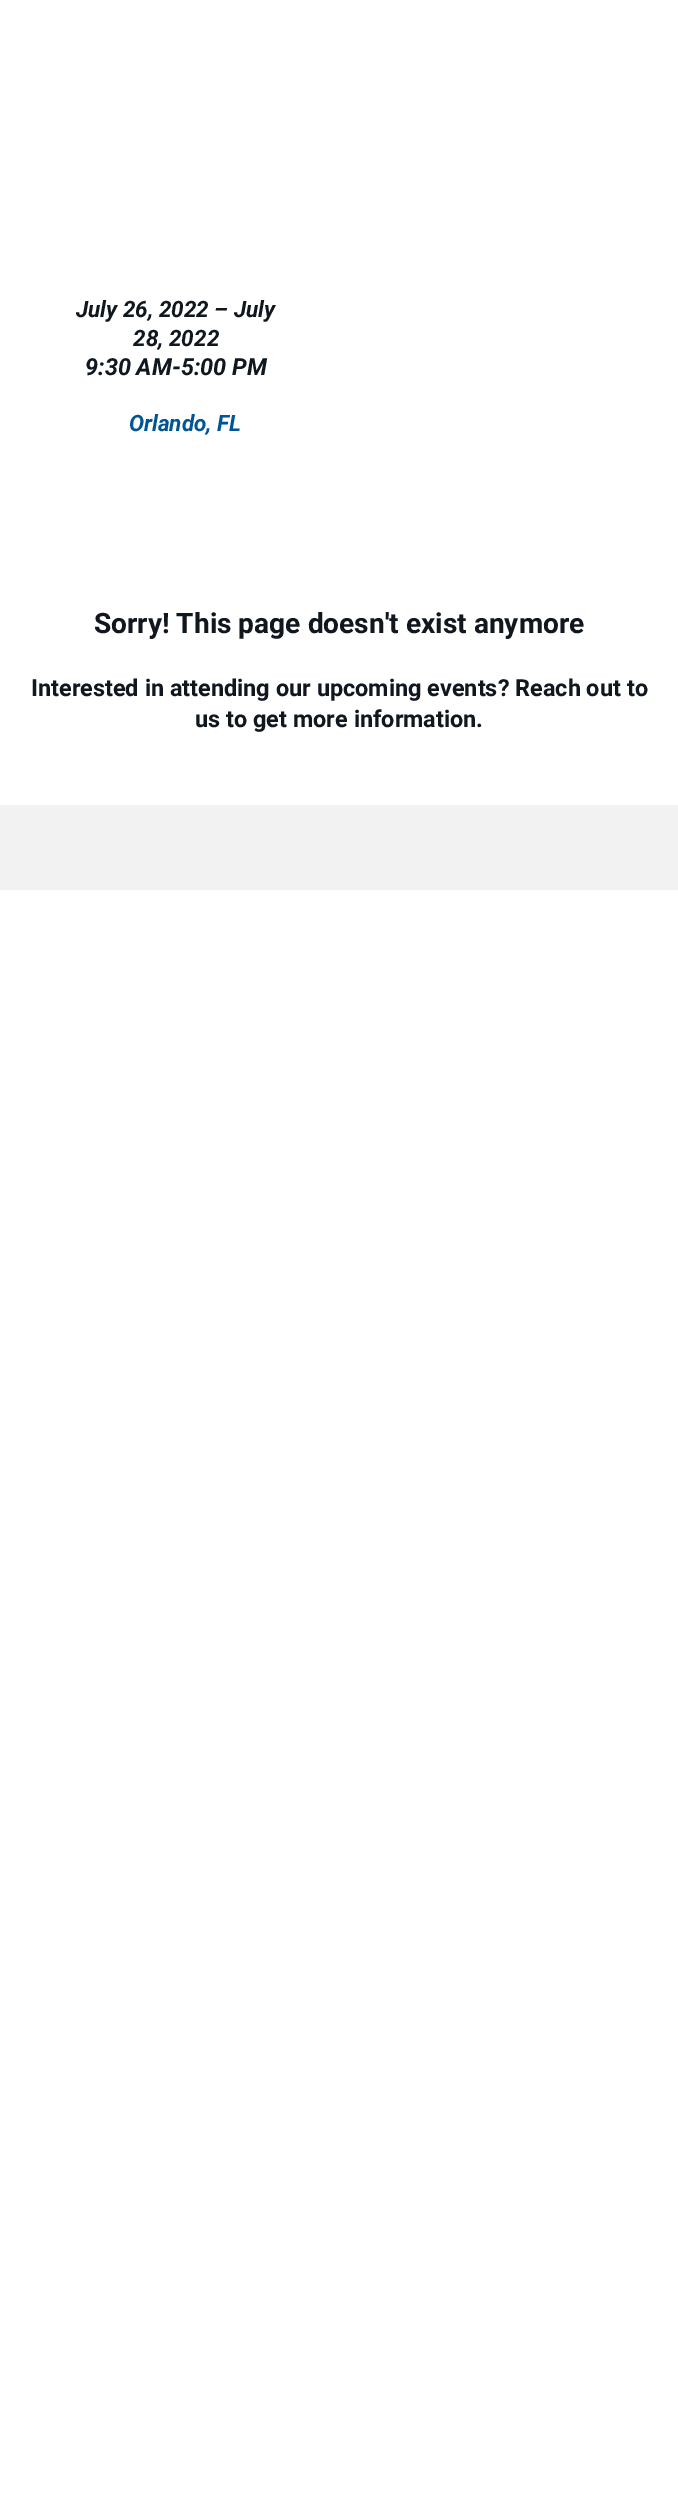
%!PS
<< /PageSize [678 2502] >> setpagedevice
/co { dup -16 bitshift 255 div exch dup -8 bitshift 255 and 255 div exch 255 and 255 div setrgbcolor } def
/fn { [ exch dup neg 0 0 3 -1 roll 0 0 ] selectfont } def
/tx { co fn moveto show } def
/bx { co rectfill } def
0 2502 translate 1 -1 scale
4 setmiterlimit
0 0 678 2502 16#FFFFFF bx
0 805 678 85 16#F2F2F2 bx
(July 26, 2022 – July) 76 317 /Roboto-BoldItalic 22.5 16#11171F tx
(28, 2022) 133 346 /Roboto-BoldItalic 22.5 16#11171F tx
(9:30 AM-5:00 PM) 85 375 /Roboto-BoldItalic 23.45 16#11171F tx
(Orlando, FL) 129 431 /Roboto-BoldItalic 22.5 16#005596 tx
(Sorry! This page doesn't exist anymore) 94 633 /Roboto-Bold 28.1 16#11171F tx
(Interested in attending our upcoming events? Reach out to) 31 696 /Roboto-Bold 23.45 16#11171F tx
(us to get more information.) 195 727 /Roboto-Bold 23.45 16#11171F tx
showpage
